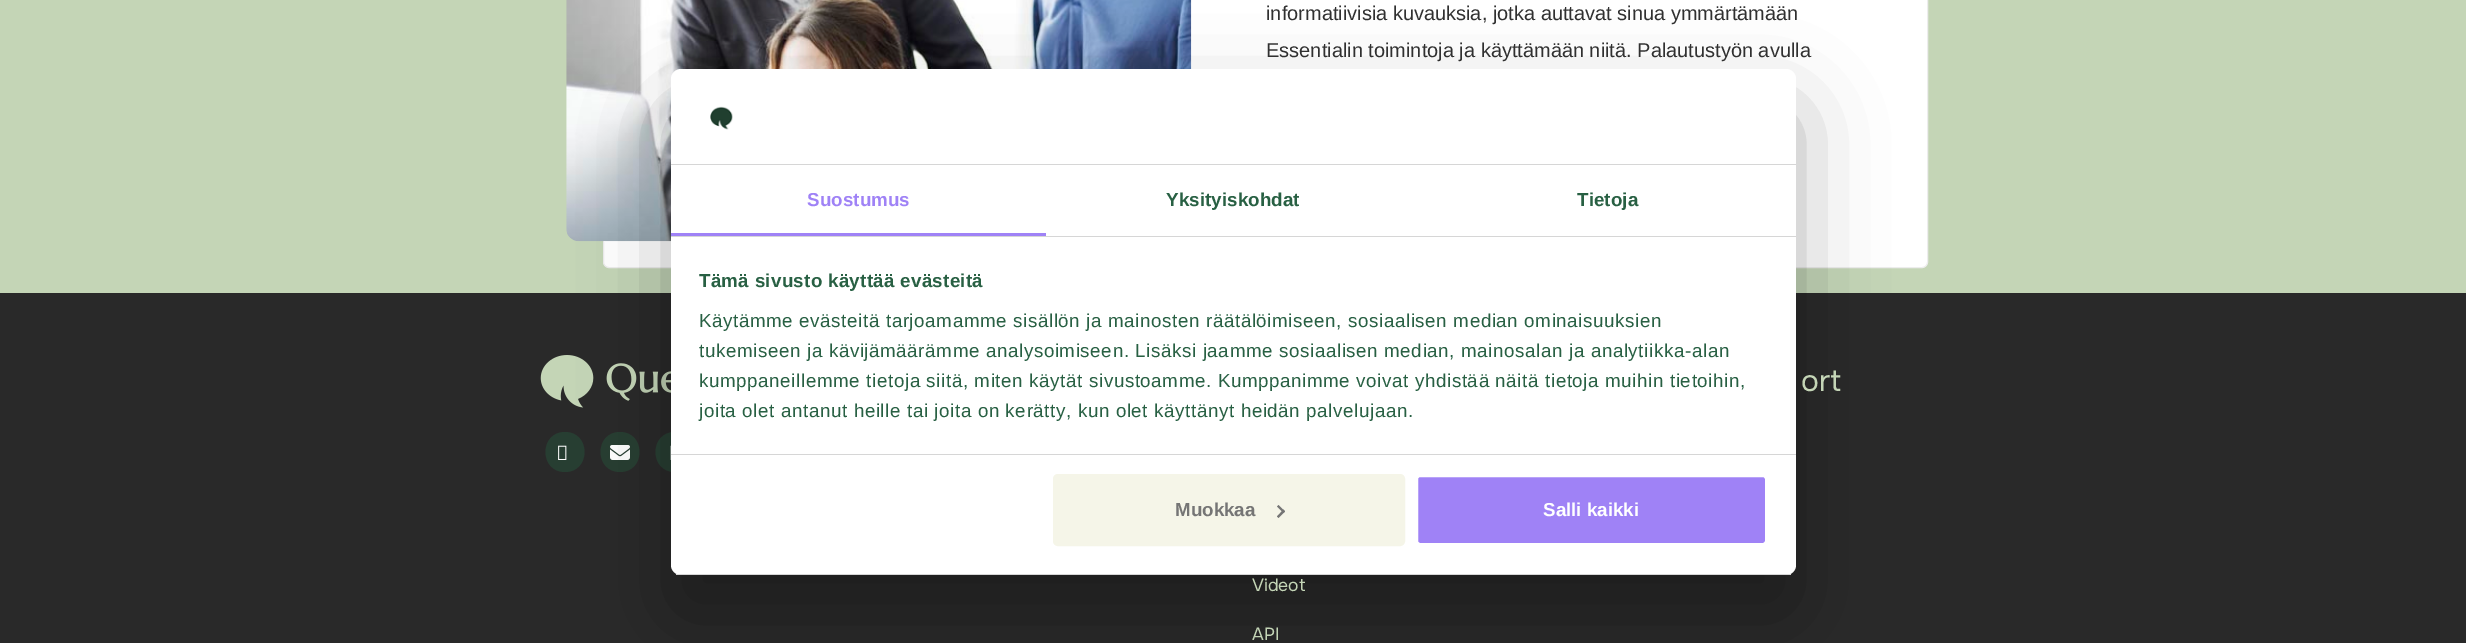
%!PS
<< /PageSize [2466 643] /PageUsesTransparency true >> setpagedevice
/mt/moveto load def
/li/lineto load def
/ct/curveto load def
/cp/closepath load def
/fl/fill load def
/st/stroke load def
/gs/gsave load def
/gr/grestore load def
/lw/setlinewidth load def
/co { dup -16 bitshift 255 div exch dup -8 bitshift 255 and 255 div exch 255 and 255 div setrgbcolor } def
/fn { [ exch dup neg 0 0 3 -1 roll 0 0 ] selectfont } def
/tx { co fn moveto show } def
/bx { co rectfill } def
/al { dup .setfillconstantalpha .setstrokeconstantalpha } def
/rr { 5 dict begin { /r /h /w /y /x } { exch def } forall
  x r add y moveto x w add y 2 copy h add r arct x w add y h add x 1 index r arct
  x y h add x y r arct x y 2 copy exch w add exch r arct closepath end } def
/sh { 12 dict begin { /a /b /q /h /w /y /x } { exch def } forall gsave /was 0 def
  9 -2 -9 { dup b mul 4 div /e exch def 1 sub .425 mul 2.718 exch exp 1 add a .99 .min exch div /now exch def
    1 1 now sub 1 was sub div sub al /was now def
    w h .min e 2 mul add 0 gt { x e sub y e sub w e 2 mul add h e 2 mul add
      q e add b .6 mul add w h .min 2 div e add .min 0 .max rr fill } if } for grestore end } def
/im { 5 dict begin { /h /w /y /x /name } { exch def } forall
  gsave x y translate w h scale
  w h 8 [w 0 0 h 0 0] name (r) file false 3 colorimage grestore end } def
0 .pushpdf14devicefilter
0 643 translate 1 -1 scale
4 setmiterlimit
0 0 2466 643 16#C4D5B6 bx
16#FFFFFF co
603.5 -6.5 1324 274 5.5 rr gs fl gr
16#EDEDED co
st
(media/1.raw) 566 0 626 242 im
0 293 2466 350 16#292929 bx
(media/3.raw) 540 355 131 53 im
16#273E32 co
565 472 mt 591 472 591 432 565 432 ct 539 432 539 472 565 472 ct cp fl
(media/4.raw) 558 445 9 15 im
620 472 mt 646 472 646 432 620 432 ct 594 432 594 472 620 472 ct cp fl
(media/5.raw) 610 445 20 15 im
675 472 mt 701 472 701 432 675 432 ct 649 432 649 472 675 472 ct cp fl
(media/6.raw) 670 445 1 15 im
16#000000 co
671 109 1125 506 10 42.5 .3 sh
16#FFFFFF co
671 69 1125 506 10 rr fl
671 164 1125 1 16#D6D6D6 bx
(media/2.raw) 710 106 23 24 im
671 236 1125 1 16#D6D6D6 bx
671 233 375 3 16#9F82F6 bx
671 454 1125 1 16#D6D6D6 bx
gs
671 69 1125 506 10 rr clip newpath
671 574 1125 1 16#D6D6D6 bx
gr
16#F5F5E8 co
1054.5 475.5 349 69 3.5 rr gs fl gr
3 lw
st
16#757575 co
1278.5 505 mt 1285 511.5 li 1283.5 513 li 1277 506.5 li cp fl
1283.5 509.5 mt 1285 511.5 li 1278.5 518 li 1277 516.5 li cp fl
16#9F82F6 co
1416.5 475.5 350 69 3.5 rr gs fl gr
16#FFFFFF co
st
(informatiivisia kuvauksia, jotka auttavat sinua ymmärtämään) 1266 20 /LiberationSans-Regular 20 16#303030 tx
(Essentialin toimintoja ja käyttämään niitä. Palautustyön avulla) 1266 57 /LiberationSans-Regular 20 16#303030 tx
/LiberationSans-Bold 18.75 fn
16#9F82F6 co
807 206 mt .1 0 (Suostumus) ashow
16#286043 co
1166 206 mt .1 0 (Yksityiskohdat) ashow
1577 206 mt .1 0 (Tietoja) ashow
699 287 mt .3 0 (Tämä sivusto käyttää evästeitä) ashow
/LiberationSans-Regular 18.75 fn
699 327 mt .62 0 (Käytämme evästeitä tarjoamamme sisällön ja mainosten räätälöimiseen, sosiaalisen median ominaisuuksien) ashow
699 357 mt .62 0 (tukemiseen ja kävijämäärämme analysoimiseen. Lisäksi jaamme sosiaalisen median, mainosalan ja analytiikka-alan) ashow
699 387 mt .62 0 (kumppaneillemme tietoja siitä, miten käytät sivustoamme. Kumppanimme voivat yhdistää näitä tietoja muihin tietoihin,) ashow
699 417 mt .62 0 (joita olet antanut heille tai joita on kerätty, kun olet käyttänyt heidän palvelujaan.) ashow
(Muokkaa) 1175 516 /LiberationSans-Bold 18.75 16#757575 tx
(Salli kaikki) 1543 516 /LiberationSans-Bold 18.75 16#FFFFFF tx
/Onest-Regular 30 fn
16#C4D5B6 co
1801 391 mt -2 0 32 (ort) widthshow
(Videot) 1252 591 /Onest-Regular 17.5 16#C4D5B6 tx
(API) 1252 640 /Onest-Regular 17.5 16#C4D5B6 tx
.poppdf14devicefilter showpage
